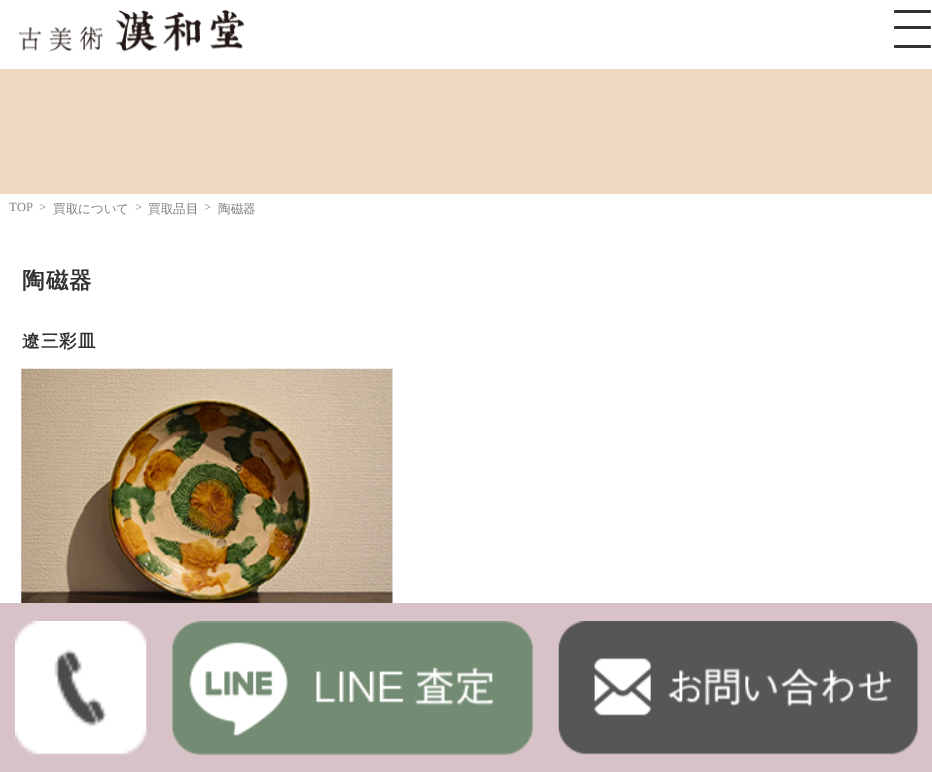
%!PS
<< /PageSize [932 772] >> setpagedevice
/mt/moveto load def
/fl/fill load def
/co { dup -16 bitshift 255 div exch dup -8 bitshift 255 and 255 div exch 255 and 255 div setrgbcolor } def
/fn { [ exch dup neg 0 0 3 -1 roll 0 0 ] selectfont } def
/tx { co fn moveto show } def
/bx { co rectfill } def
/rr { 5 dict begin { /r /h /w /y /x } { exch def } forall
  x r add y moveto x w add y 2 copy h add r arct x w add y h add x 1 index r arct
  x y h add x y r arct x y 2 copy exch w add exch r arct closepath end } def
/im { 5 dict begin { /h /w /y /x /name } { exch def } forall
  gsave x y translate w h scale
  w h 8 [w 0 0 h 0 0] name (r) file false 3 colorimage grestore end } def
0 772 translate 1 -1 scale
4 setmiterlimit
0 0 932 772 16#FFFFFF bx
0 69 932 125 16#EFD9C1 bx
(media/1.raw) 18 10 226 42 im
16#323232 co
894 10 37 3 1.5 rr fl
894 26 37 3 1.5 rr fl
894 45 37 3 1.5 rr fl
(media/2.raw) 21 368 372 235 im
0 603 932 169 16#D7C3C7 bx
(media/3.raw) 15 621 132 134 im
(media/4.raw) 172 621 361 134 im
(media/5.raw) 558 621 360 134 im
(TOP) 9 211 /LiberationSerif-Regular 12.5 16#808080 tx
(>) 39 211 /LiberationSerif-Regular 12.5 16#808080 tx
(買取について) 53 213 /WenQuanYiZenHei-Medium 12.5 16#808080 tx
(>) 135 211 /LiberationSerif-Regular 12.5 16#808080 tx
(買取品目) 148 213 /WenQuanYiZenHei-Medium 12.5 16#808080 tx
(>) 204 211 /LiberationSerif-Regular 12.5 16#808080 tx
(陶磁器) 218 213 /WenQuanYiZenHei-Medium 12.5 16#808080 tx
/WenQuanYiZenHei-Bold 22.5 fn
16#323232 co
22 288 mt 1 0 (陶磁器) ashow
/WenQuanYiZenHei-Bold 17.5 fn
22 347 mt 1 0 (遼三彩皿) ashow
showpage
